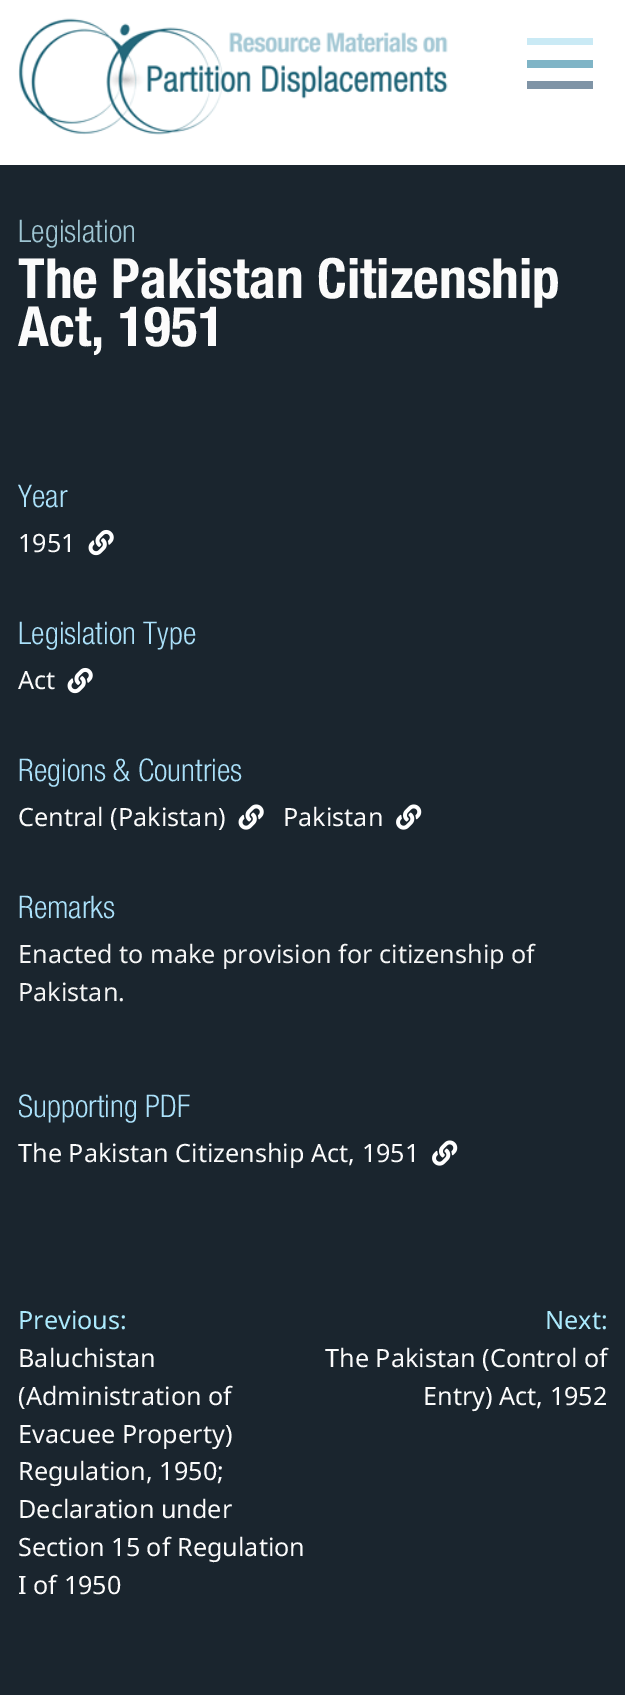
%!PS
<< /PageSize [625 1695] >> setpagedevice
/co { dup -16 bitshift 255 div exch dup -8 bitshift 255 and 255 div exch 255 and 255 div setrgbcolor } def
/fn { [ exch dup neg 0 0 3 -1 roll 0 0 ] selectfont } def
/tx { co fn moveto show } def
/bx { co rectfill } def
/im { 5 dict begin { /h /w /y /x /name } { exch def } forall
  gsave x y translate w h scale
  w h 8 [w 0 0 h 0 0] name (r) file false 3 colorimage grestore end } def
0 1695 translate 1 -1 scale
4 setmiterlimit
0 0 625 1695 16#FFFFFF bx
(media/1.raw) 18 18 430 117 im
527 38 66 7 16#CAEAF5 bx
527 60 66 8 16#7FB4C6 bx
527 81 66 8 16#7F94A6 bx
0 165 625 1530 16#1A252E bx
(media/2.raw) 88 529 26 27 im
(media/2.raw) 67 667 26 27 im
(media/3.raw) 238 804 26 26 im
(media/4.raw) 396 804 26 26 im
(media/4.raw) 432 1140 26 26 im
(Legislation) 18 242 /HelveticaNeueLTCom-Light 31.25 16#9FC6D3 tx
(The Pakistan Citizenship) 18 298 /HelveticaNeueLTCom-Bold 55.5 16#FBFBFB tx
(Act, 1951) 18 346 /HelveticaNeueLTCom-Bold 55.5 16#FBFBFB tx
(Year) 18 507 /HelveticaNeueLTCom-Light 31.25 16#ABE1FA tx
(1951) 18 552 /NotoSans-Regular 25.2 16#FBFBFB tx
(Legislation Type) 18 644 /HelveticaNeueLTCom-Light 31.25 16#ABE1FA tx
(Act) 18 689 /NotoSans-Regular 25.2 16#FBFBFB tx
(Regions & Countries) 18 781 /HelveticaNeueLTCom-Light 31.25 16#ABE1FA tx
(Central \(Pakistan\)) 18 826 /NotoSans-Regular 25.2 16#FBFBFB tx
(Pakistan) 283 826 /NotoSans-Regular 25.2 16#FBFBFB tx
(Remarks) 18 918 /HelveticaNeueLTCom-Light 31.25 16#ABE1FA tx
(Enacted to make provision for citizenship of) 18 963 /NotoSans-Regular 25.2 16#F5F5F5 tx
(Pakistan.) 18 1001 /NotoSans-Regular 25.2 16#F5F5F5 tx
(Supporting PDF) 18 1117 /HelveticaNeueLTCom-Light 31.25 16#ABE1FA tx
(The Pakistan Citizenship Act, 1951) 18 1162 /NotoSans-Regular 25.2 16#FBFBFB tx
(Previous:) 18 1329 /NotoSans-Regular 25.2 16#ACEAFD tx
(Baluchistan) 18 1367 /NotoSans-Regular 25.2 16#FBFBFB tx
(\(Administration of) 18 1405 /NotoSans-Regular 25.2 16#FBFBFB tx
(Evacuee Property\)) 18 1443 /NotoSans-Regular 25.2 16#FBFBFB tx
(Regulation, 1950;) 18 1480 /NotoSans-Regular 25.2 16#FBFBFB tx
(Declaration under) 18 1518 /NotoSans-Regular 25.2 16#FBFBFB tx
(Section 15 of Regulation) 18 1556 /NotoSans-Regular 25.2 16#FBFBFB tx
(I of 1950) 18 1594 /NotoSans-Regular 25.2 16#FBFBFB tx
(Next:) 545 1329 /NotoSans-Regular 25.2 16#ACEAFD tx
(The Pakistan \(Control of) 325 1367 /NotoSans-Regular 25.2 16#FBFBFB tx
(Entry\) Act, 1952) 423 1405 /NotoSans-Regular 25.2 16#FBFBFB tx
showpage
